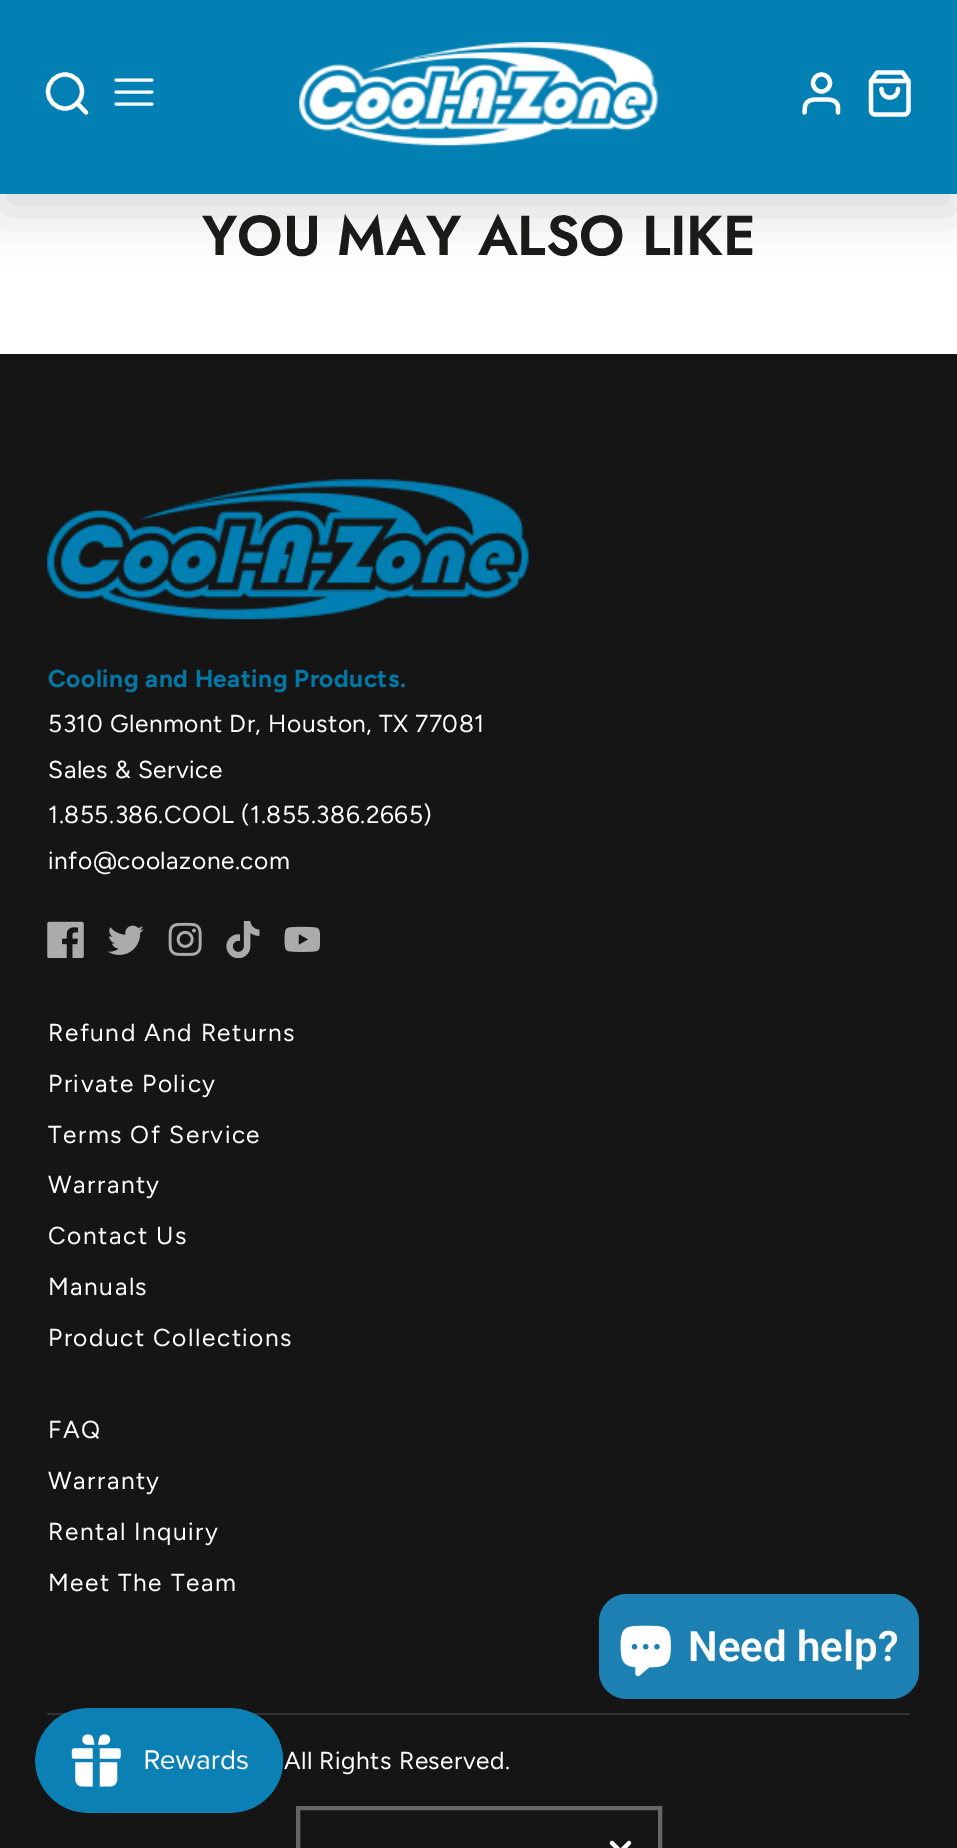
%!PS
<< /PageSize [957 1848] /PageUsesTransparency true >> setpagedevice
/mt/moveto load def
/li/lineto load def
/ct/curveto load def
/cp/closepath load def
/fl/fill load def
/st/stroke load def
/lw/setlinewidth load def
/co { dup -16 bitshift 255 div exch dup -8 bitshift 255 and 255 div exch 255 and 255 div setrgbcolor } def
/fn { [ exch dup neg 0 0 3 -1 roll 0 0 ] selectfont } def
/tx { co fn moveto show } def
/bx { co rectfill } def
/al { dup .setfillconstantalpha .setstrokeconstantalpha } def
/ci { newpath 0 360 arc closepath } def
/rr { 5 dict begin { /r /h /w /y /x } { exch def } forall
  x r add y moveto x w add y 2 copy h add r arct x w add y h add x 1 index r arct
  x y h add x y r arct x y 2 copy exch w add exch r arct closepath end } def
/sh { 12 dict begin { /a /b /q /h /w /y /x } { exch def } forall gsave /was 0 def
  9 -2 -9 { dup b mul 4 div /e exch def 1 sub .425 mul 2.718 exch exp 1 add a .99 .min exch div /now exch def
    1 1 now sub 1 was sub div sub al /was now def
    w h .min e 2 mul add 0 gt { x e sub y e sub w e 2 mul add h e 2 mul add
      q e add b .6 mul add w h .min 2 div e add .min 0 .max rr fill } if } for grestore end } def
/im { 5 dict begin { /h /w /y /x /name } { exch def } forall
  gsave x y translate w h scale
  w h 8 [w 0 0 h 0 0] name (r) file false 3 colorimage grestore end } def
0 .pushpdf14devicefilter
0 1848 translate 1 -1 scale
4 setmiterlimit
0 0 957 1848 16#FFFFFF bx
16#000000 co
0 18 957 194 0 26 .15 sh
0 0 957 194 16#0280B3 bx
16#FFFFFF co
4.2 lw
65 91.5 17 ci st
1 setlinecap
1 setlinejoin
86 112.5 mt 77 103 li st
3 lw
116 92 mt 152 92 li 116 80 mt 152 80 li 116 104 mt 152 104 li st
(media/1.raw) 299 42 359 104 im
4.2 lw
0 setlinecap
0 setlinejoin
821.5 83 8.5 ci st
1 setlinecap
1 setlinejoin
838 112.5 mt 838 106.5 li 836.5 98.5 827.5 99.5 821.5 99.5 ct 815.5 99.5 806.5 98.5 805 106.5 ct 804.5 112.5 li st
877 72.5 mt 871 81 li 871 110 li 871 112.5 872.5 114.5 875 114.5 ct 904.5 114.5 li 906.5 114.5 908.5 112.5 908.5 110 ct 908.5 81 li 902.5 72.5 li cp 871 81 mt 908.5 81 li 898 89 mt 898 100.5 881.5 100.5 881.5 89 ct st
0 354 957 1494 16#151515 bx
(media/2.raw) 47 479 482 141 im
(media/3.raw) 47 921 37 37 im
(media/4.raw) 108 925 36 30 im
(media/5.raw) 168 922 34 34 im
(media/6.raw) 226 921 34 37 im
(media/7.raw) 284 926 36 26 im
47 1713 863 2 16#343434 bx
16#666666 co
4 lw
0 setlinecap
0 setlinejoin
298 1808 362 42 rectstroke
16#FFFFFF co
4.2 lw
1 setlinecap
1 setlinejoin
612 1843 mt 620.5 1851.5 li 629 1843 li st
16#1C80B3 co
599 1594 320 105 28 rr fl
(media/8.raw) 620 1625 51 52 im
(media/9.raw) 35 1708 249 105 im
(YOU MAY ALSO LIKE) 202 255 /Jost-SemiBold 56 16#1A1B18 tx
/Figtree-Bold 24.5 fn
16#0378A5 co
48 687 mt .5 0 (Cooling and Heating Products.) ashow
/Figtree-Regular 24.5 fn
16#FFFFFF co
48 732 mt .5 0 (5310 Glenmont Dr, Houston, TX 77081) ashow
48 778 mt .5 0 (Sales & Service) ashow
48 823 mt .5 0 (1.855.386.COOL \(1.855.386.2665\)) ashow
48 869 mt .5 0 (info@coolazone.com) ashow
48 1041 mt 1.5 0 (Refund And Returns) ashow
48 1092 mt 1.5 0 (Private Policy) ashow
48 1143 mt 1.5 0 (Terms Of Service) ashow
48 1193 mt 1.5 0 (Warranty) ashow
48 1244 mt 1.5 0 (Contact Us) ashow
48 1295 mt 1.5 0 (Manuals) ashow
48 1346 mt 1.5 0 (Product Collections) ashow
48 1438 mt 1.5 0 (FAQ) ashow
48 1489 mt 1.5 0 (Warranty) ashow
48 1540 mt 1.5 0 (Rental Inquiry) ashow
48 1591 mt 1.5 0 (Meet The Team) ashow
284 1769 mt .5 0 (All Rights Reserved.) ashow
(Need help?) 688 1661 /Roboto-SemiBold 42 16#FFFFFF tx
.poppdf14devicefilter showpage
